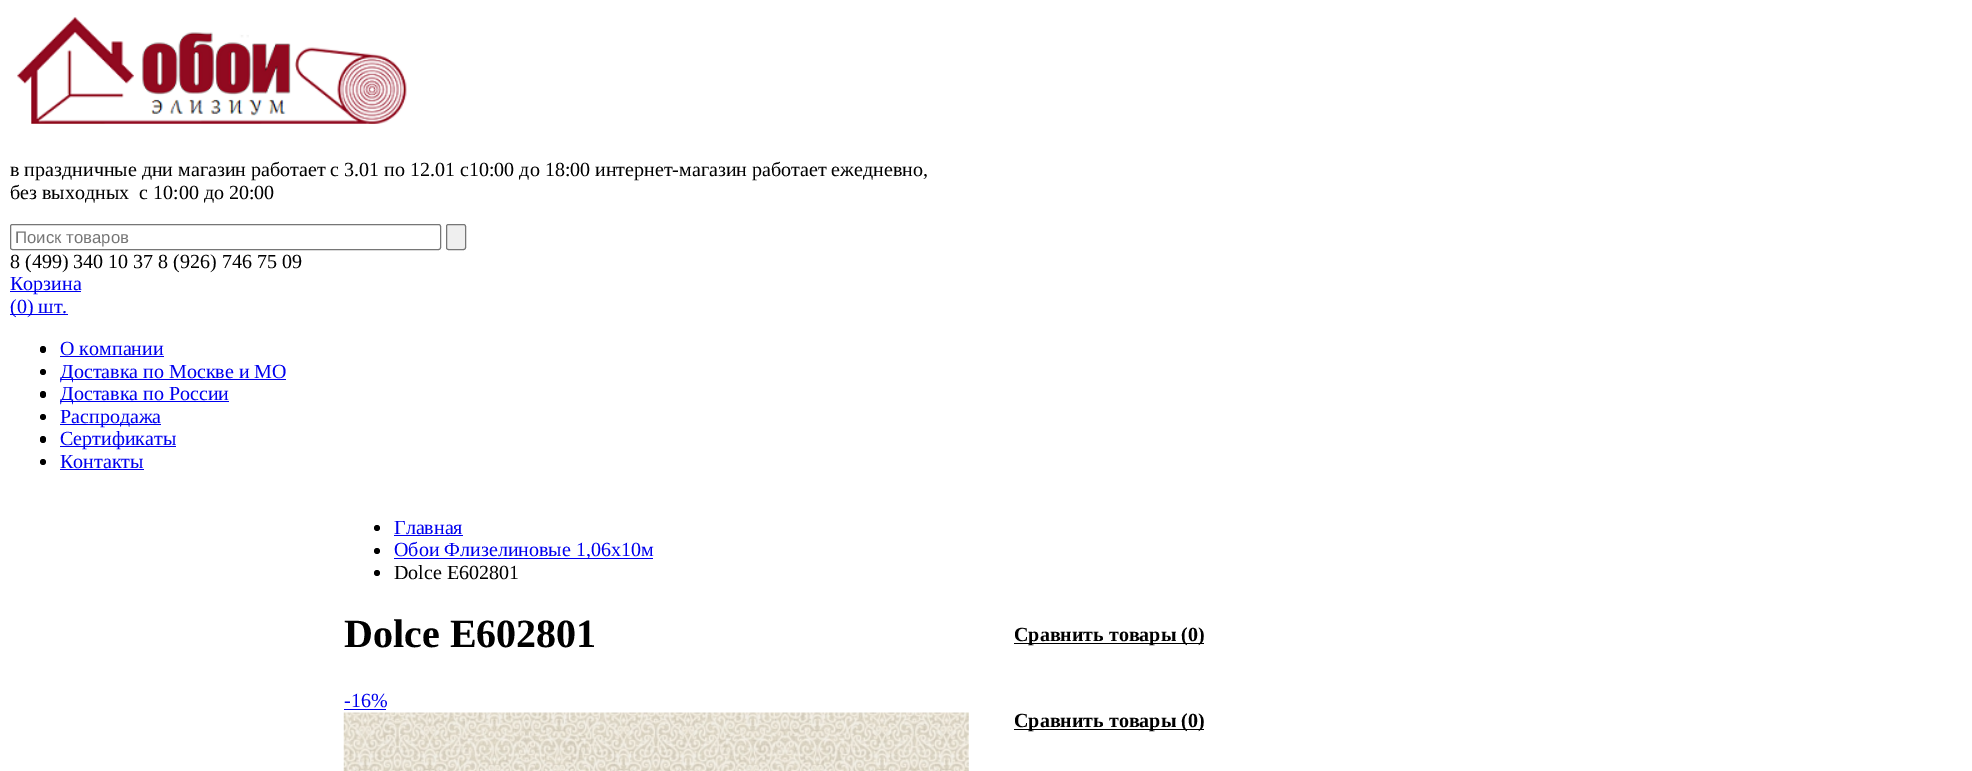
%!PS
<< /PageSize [1972 771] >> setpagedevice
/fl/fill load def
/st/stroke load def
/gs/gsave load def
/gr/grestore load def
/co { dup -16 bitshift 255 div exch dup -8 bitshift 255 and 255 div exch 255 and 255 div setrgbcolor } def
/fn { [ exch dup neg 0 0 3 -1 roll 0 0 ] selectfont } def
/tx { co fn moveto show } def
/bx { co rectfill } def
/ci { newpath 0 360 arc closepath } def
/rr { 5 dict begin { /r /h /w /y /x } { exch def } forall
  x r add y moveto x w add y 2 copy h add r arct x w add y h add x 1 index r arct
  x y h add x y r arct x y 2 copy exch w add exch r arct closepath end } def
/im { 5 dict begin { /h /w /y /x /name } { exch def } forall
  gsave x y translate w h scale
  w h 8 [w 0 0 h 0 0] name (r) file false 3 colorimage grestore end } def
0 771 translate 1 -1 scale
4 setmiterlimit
0 0 1972 771 16#FFFFFF bx
(media/1.raw) 17 17 390 107 im
16#767676 co
10.5 224.5 430 25 2 rr st
16#EFEFEF co
446.5 224.5 19 25 2 rr gs fl gr
16#767676 co
st
10 291 71 1 16#0000EE bx
10 314 58 1 16#0000EE bx
16#000000 co
40 346 6 7 3 rr fl
60 356 104 1 16#0000EE bx
16#000000 co
43 372 3 ci fl
60 379 226 1 16#0000EE bx
16#000000 co
40 391 6 7 3 rr fl
60 401 169 1 16#0000EE bx
16#000000 co
43 417 3 ci fl
60 424 101 1 16#0000EE bx
16#000000 co
40 436 6 7 3 rr fl
60 446 116 1 16#0000EE bx
16#000000 co
43 462 3 ci fl
60 469 84 1 16#0000EE bx
16#000000 co
377 528 3 ci fl
394 535 69 1 16#0000EE bx
16#000000 co
377 551 3 ci fl
394 558 259 1 16#0000EE bx
16#000000 co
377 573 3 ci fl
1014 643 190 1 16#000000 bx
344 709 42 1 16#0000EE bx
(media/2.raw) 343 712 626 59 im
1014 729 190 1 16#000000 bx
(в праздничные дни магазин работает с 3.01 по 12.01 с10:00 до 18:00 интернет-магазин работает ежедневно,) 10 176 /LiberationSerif-Regular 20 16#000000 tx
(без выходных  c 10:00 до 20:00) 10 199 /LiberationSerif-Regular 20 16#000000 tx
(Поиск товаров) 15 243 /LiberationSans-Regular 16.75 16#757575 tx
(8 \(499\) 340 10 37 8 \(926\) 746 75 09) 10 268 /LiberationSerif-Regular 20 16#000000 tx
(Корзина) 10 290 /LiberationSerif-Regular 20 16#0000EE tx
(\(0\) шт.) 10 313 /LiberationSerif-Regular 20 16#0000EE tx
(О компании) 60 355 /LiberationSerif-Regular 20 16#0000EE tx
(Доставка по Москве и МО) 60 378 /LiberationSerif-Regular 20 16#0000EE tx
(Доставка по России) 60 400 /LiberationSerif-Regular 20 16#0000EE tx
(Распродажа) 60 423 /LiberationSerif-Regular 20 16#0000EE tx
(Сертификаты) 60 445 /LiberationSerif-Regular 20 16#0000EE tx
(Контакты) 60 468 /LiberationSerif-Regular 20 16#0000EE tx
(Главная) 394 534 /LiberationSerif-Regular 20 16#0000EE tx
(Обои Флизелиновые 1,06х10м) 394 556 /LiberationSerif-Regular 20 16#0000EE tx
(Dolce Е602801) 394 579 /LiberationSerif-Regular 20 16#000000 tx
(Dolce Е602801) 344 647 /LiberationSerif-Bold 40 16#000000 tx
(Сравнить товары \(0\)) 1014 641 /LiberationSerif-Bold 20 16#000000 tx
(-16%) 344 707 /LiberationSerif-Regular 20 16#0000EE tx
(Сравнить товары \(0\)) 1014 727 /LiberationSerif-Bold 20 16#000000 tx
showpage
